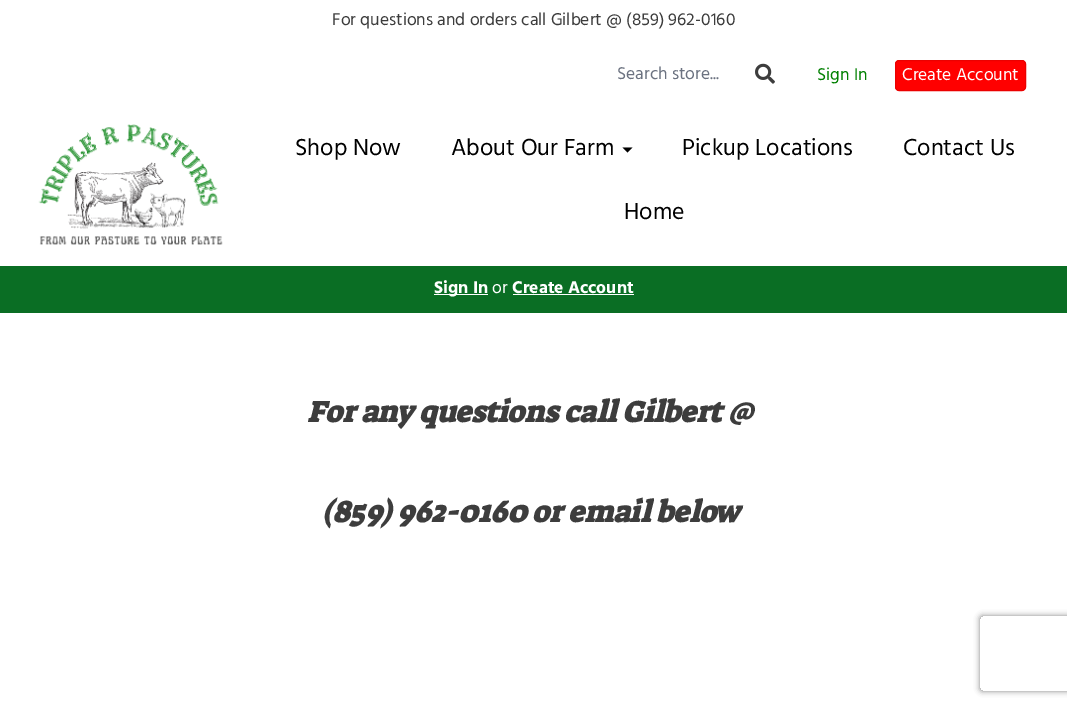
%!PS
<< /PageSize [1067 708] /PageUsesTransparency true >> setpagedevice
/mt/moveto load def
/li/lineto load def
/ct/curveto load def
/cp/closepath load def
/fl/fill load def
/st/stroke load def
/gs/gsave load def
/gr/grestore load def
/co { dup -16 bitshift 255 div exch dup -8 bitshift 255 and 255 div exch 255 and 255 div setrgbcolor } def
/fn { [ exch dup neg 0 0 3 -1 roll 0 0 ] selectfont } def
/tx { co fn moveto show } def
/bx { co rectfill } def
/al { dup .setfillconstantalpha .setstrokeconstantalpha } def
/rr { 5 dict begin { /r /h /w /y /x } { exch def } forall
  x r add y moveto x w add y 2 copy h add r arct x w add y h add x 1 index r arct
  x y h add x y r arct x y 2 copy exch w add exch r arct closepath end } def
/sh { 12 dict begin { /a /b /q /h /w /y /x } { exch def } forall gsave /was 0 def
  9 -2 -9 { dup b mul 4 div /e exch def 1 sub .425 mul 2.718 exch exp 1 add a .99 .min exch div /now exch def
    1 1 now sub 1 was sub div sub al /was now def
    w h .min e 2 mul add 0 gt { x e sub y e sub w e 2 mul add h e 2 mul add
      q e add b .6 mul add w h .min 2 div e add .min 0 .max rr fill } if } for grestore end } def
/im { 5 dict begin { /h /w /y /x /name } { exch def } forall
  gsave x y translate w h scale
  w h 8 [w 0 0 h 0 0] name (r) file false 3 colorimage grestore end } def
0 .pushpdf14devicefilter
0 708 translate 1 -1 scale
4 setmiterlimit
0 0 1067 708 16#FFFFFF bx
(media/1.raw) 755 63 20 21 im
16#FF0000 co
895.5 60.5 130 30 3.5 rr gs fl gr
16#EB0000 co
st
(media/2.raw) 38 124 185 121 im
16#000000 co
622.5 147.5 mt 632.5 147.5 li 627.5 152.5 li cp fl
0 266 1067 47 16#0A6E24 bx
434 294 54 1 16#FFFFFF bx
513 294 121 1 16#FFFFFF bx
gs
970 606 mt 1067 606 li 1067 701 li 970 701 li cp 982.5 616 mt 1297.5 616 li 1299 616 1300 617 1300 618.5 ct 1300 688.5 li 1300 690 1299 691 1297.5 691 ct 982.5 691 li 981 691 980 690 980 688.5 ct 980 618.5 li 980 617 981 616 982.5 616 ct cp eoclip newpath
16#808080 co
980 616 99 75 2.5 3 1 sh
gr
(For questions and orders call Gilbert @ \(859\) 962-0160) 332 25 /Hind-Regular 17.5 16#3D3D3D tx
(Search store...) 617 79 /Hind-Regular 17.5 16#6B7280 tx
(Sign In) 817 80 /Hind-Regular 17.5 16#008000 tx
(Create Account) 902 80 /Hind-Regular 17.5 16#FFFFFF tx
(Shop Now) 295 155 /Hind-Regular 23.75 16#000000 tx
(About Our Farm) 451 155 /Hind-Regular 23.75 16#000000 tx
(Pickup Locations) 682 155 /Hind-Regular 23.75 16#000000 tx
(Contact Us) 903 155 /Hind-Regular 23.75 16#000000 tx
(Home) 624 219 /Hind-Regular 23.75 16#000000 tx
(Sign In) 434 293 /Hind-Bold 17.5 16#FFFFFF tx
(or) 492 293 /Hind-Regular 17.5 16#FFFFFF tx
(Create Account) 512 293 /Hind-Bold 17.5 16#FFFFFF tx
(For any questions call Gilbert @) 307 422 /SuezOne-BoldItalic 30 16#3D3D3D tx
(\(859\) 962-0160 or email below) 322 522 /SuezOne-BoldItalic 30 16#3D3D3D tx
.poppdf14devicefilter showpage
